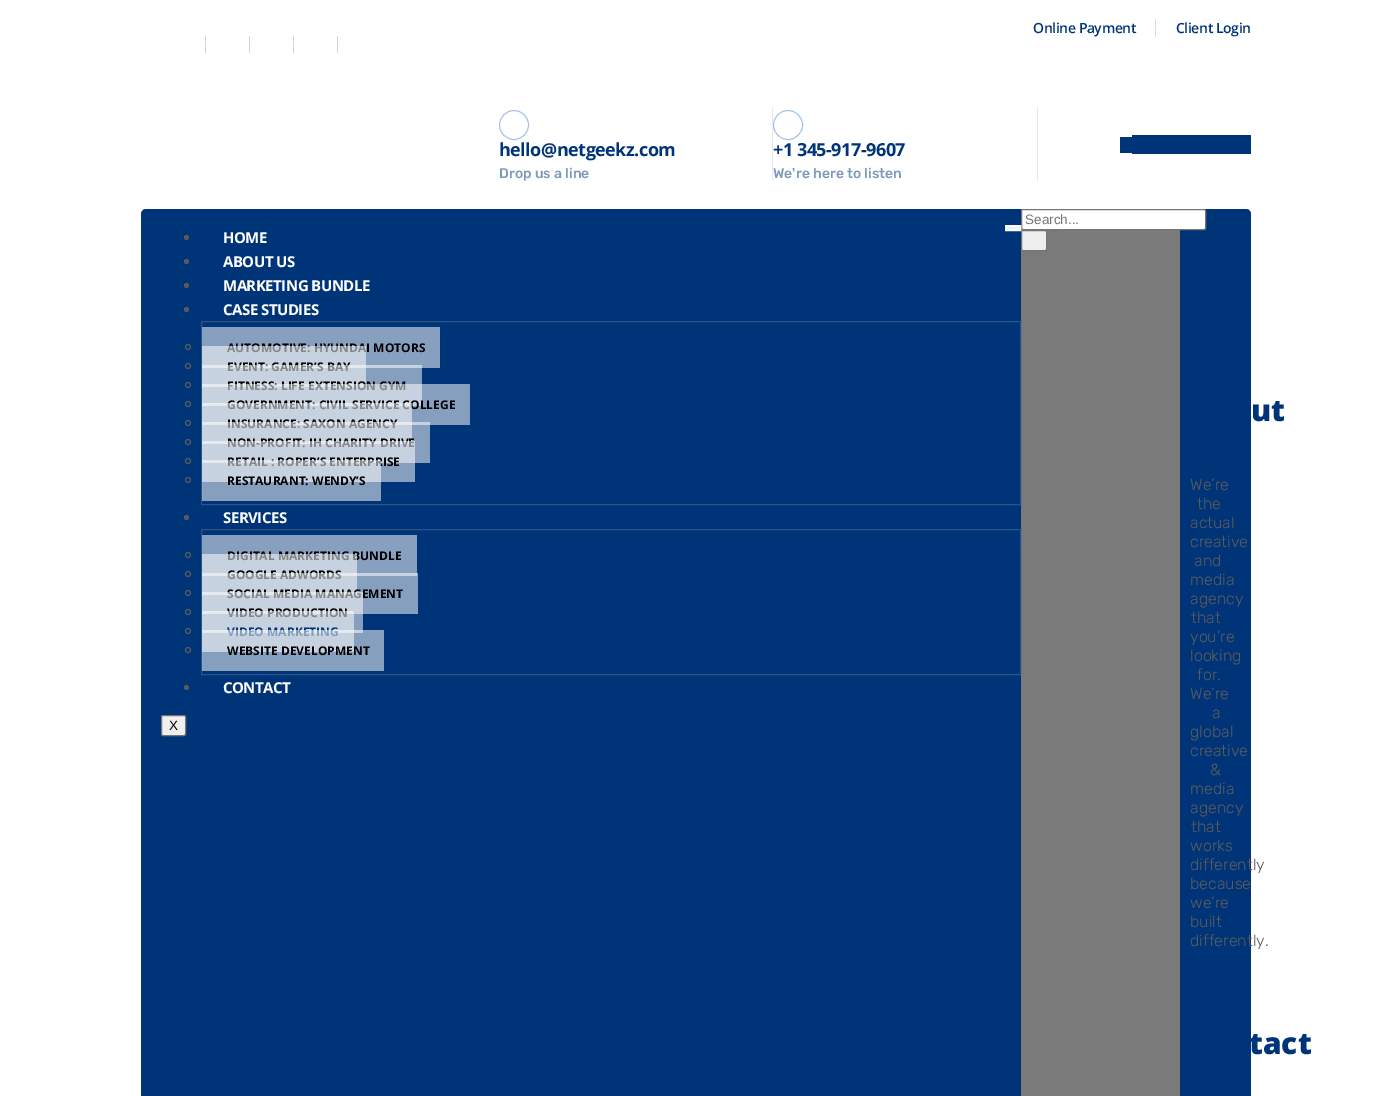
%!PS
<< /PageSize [1392 1096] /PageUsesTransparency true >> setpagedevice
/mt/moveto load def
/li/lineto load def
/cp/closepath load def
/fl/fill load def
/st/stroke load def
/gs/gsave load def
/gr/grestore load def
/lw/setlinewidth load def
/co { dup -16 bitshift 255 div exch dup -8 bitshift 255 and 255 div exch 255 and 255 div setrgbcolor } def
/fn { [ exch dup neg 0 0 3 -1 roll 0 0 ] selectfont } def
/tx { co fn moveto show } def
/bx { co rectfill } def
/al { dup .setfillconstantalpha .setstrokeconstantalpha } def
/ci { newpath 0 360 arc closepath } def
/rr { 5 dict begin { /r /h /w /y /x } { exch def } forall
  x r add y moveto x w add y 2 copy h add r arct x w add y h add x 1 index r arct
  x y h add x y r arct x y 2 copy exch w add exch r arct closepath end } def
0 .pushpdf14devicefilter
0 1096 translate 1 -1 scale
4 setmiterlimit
0 0 1392 1096 16#FFFFFF bx
1155 19 1 18 16#DDDDDD bx
205 36 1 17 16#CCD7E6 bx
249 36 1 17 16#CCD7E6 bx
293 36 1 17 16#CCD7E6 bx
337 36 1 17 16#CCD7E6 bx
772 107 1 74 16#E5EAF1 bx
16#A8C4E9 co
514 125 14.5 ci st
1037 107 1 74 16#E5EAF1 bx
16#A8C4E9 co
788 125 14.5 ci st
1120 137 12 16 16#003478 bx
1132 135 119 19 16#003478 bx
141 209 1110 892 5 rr fl
1021 209 159 887 16#7A7A7A bx
16#FFFFFF co
1021.5 209.5 184 20 1.5 rr gs fl gr
16#767676 co
st
16#EFEFEF co
1021.5 230.5 25 20 1.5 rr gs fl gr
16#767676 co
st
16#EFEFEF co
1006 226 mt 1020 226 li 1020 230 li 1006 230 li cp gs fl gr
16#F9F9F9 co
2 lw
st
16#5A5A5A co
186.5 237.5 2.5 ci fl
186.5 261.5 2.5 ci fl
186.5 285.5 2.5 ci fl
186.5 309.5 2.5 ci fl
16#2C5386 co
1 lw
201.5 321.5 819 183 rectstroke
16#5A5A5A co
188 347 2.5 ci st
202 327 238 41 16#87A0C0 bx
16#5A5A5A co
188 366 2.5 ci st
188 385 2.5 ci st
188 404 2.5 ci st
188 423 2.5 ci st
188 442 2.5 ci st
188 461 2.5 ci st
188 480 2.5 ci st
186.5 517.5 2.5 ci fl
16#2C5386 co
201.5 529.5 819 145 rectstroke
16#5A5A5A co
188 555 2.5 ci st
202 535 215 41 16#87A0C0 bx
16#5A5A5A co
188 574 2.5 ci st
188 593 2.5 ci st
188 612 2.5 ci st
188 631 2.5 ci st
188 650 2.5 ci st
186.5 687.5 2.5 ci fl
16#EFEFEF co
161.5 715.5 24 20 1.5 rr gs fl gr
16#767676 co
st
/OpenSans-SemiBold 14 fn
16#003478 co
1033 33 mt -.4 0 (Online Payment) ashow
1176 33 mt -.4 0 (Client Login) ashow
/OpenSans-Bold 18 fn
499 156 mt -.5 0 (hello@netgeekz.com) ashow
(Drop us a line) 499 178 /Rubik-Medium 14 16#7F99BB tx
/OpenSans-Bold 18 fn
16#003478 co
773 156 mt -.5 0 (+1 345-917-9607) ashow
(We're here to listen) 773 178 /Rubik-Medium 14 16#7F99BB tx
(Search...) 1025 224 /LiberationSans-Regular 13.5 16#757575 tx
/OpenSans-Bold 15 fn
16#FFFFFF co
223 243 mt -.5 0 (HOME) ashow
223 267 mt -.5 0 (ABOUT US) ashow
223 291 mt -.5 0 (MARKETING BUNDLE) ashow
223 315 mt -.5 0 (CASE STUDIES) ashow
(AUTOMOTIVE: HYUNDAI MOTORS) 227 352 /OpenSans-Bold 12 16#000000 tx
0.53 al
202 346 164 41 16#FFFFFF bx
1 al
(EVENT: GAMER’S BAY) 227 371 /OpenSans-Bold 12 16#000000 tx
0.53 al
202 365 220 41 16#FFFFFF bx
1 al
(FITNESS: LIFE EXTENSION GYM) 227 390 /OpenSans-Bold 12 16#000000 tx
0.53 al
202 384 268 41 16#FFFFFF bx
1 al
(GOVERNMENT: CIVIL SERVICE COLLEGE) 227 409 /OpenSans-Bold 12 16#000000 tx
0.53 al
202 403 210 41 16#FFFFFF bx
1 al
(INSURANCE: SAXON AGENCY) 227 428 /OpenSans-Bold 12 16#000000 tx
0.53 al
202 422 228 41 16#FFFFFF bx
1 al
(NON-PROFIT: IH CHARITY DRIVE) 227 447 /OpenSans-Bold 12 16#000000 tx
0.53 al
202 441 213 41 16#FFFFFF bx
1 al
(RETAIL : ROPER’S ENTERPRISE) 227 466 /OpenSans-Bold 12 16#000000 tx
0.53 al
202 460 179 41 16#FFFFFF bx
1 al
(RESTAURANT: WENDY’S) 227 485 /OpenSans-Bold 12 16#000000 tx
/OpenSans-Bold 15 fn
16#FFFFFF co
223 523 mt -.5 0 (SERVICES) ashow
(DIGITAL MARKETING BUNDLE) 227 560 /OpenSans-Bold 12 16#000000 tx
0.53 al
202 554 155 41 16#FFFFFF bx
1 al
(GOOGLE ADWORDS) 227 579 /OpenSans-Bold 12 16#000000 tx
0.53 al
202 573 216 41 16#FFFFFF bx
1 al
(SOCIAL MEDIA MANAGEMENT) 227 598 /OpenSans-Bold 12 16#000000 tx
0.53 al
202 592 161 41 16#FFFFFF bx
1 al
(VIDEO PRODUCTION) 227 617 /OpenSans-Bold 12 16#000000 tx
0.53 al
202 611 152 41 16#FFFFFF bx
1 al
(VIDEO MARKETING) 227 636 /OpenSans-Bold 12 16#003478 tx
0.53 al
202 630 182 41 16#FFFFFF bx
1 al
(WEBSITE DEVELOPMENT) 227 655 /OpenSans-Bold 12 16#000000 tx
/OpenSans-Bold 15 fn
16#FFFFFF co
223 693 mt -.5 0 (CONTACT) ashow
(X) 169 730 /LiberationSans-Regular 13.5 16#000000 tx
(ut) 1251 421 /OpenSans-ExtraBold 30 16#003478 tx
(We’re) 1190 490 /Rubik-Light 16 16#5A5A5A tx
(the) 1197 509 /Rubik-Light 16 16#5A5A5A tx
(actual) 1190 528 /Rubik-Light 16 16#5A5A5A tx
(creative) 1190 547 /Rubik-Light 16 16#5A5A5A tx
(and) 1194 566 /Rubik-Light 16 16#5A5A5A tx
(media) 1190 585 /Rubik-Light 16 16#5A5A5A tx
(agency) 1190 604 /Rubik-Light 16 16#5A5A5A tx
(that) 1191 623 /Rubik-Light 16 16#5A5A5A tx
(you’re) 1190 642 /Rubik-Light 16 16#5A5A5A tx
(looking) 1190 661 /Rubik-Light 16 16#5A5A5A tx
(for.) 1197 680 /Rubik-Light 16 16#5A5A5A tx
(We’re) 1190 699 /Rubik-Light 16 16#5A5A5A tx
(a) 1212 718 /Rubik-Light 16 16#5A5A5A tx
(global) 1190 737 /Rubik-Light 16 16#5A5A5A tx
(creative) 1190 756 /Rubik-Light 16 16#5A5A5A tx
(&) 1210 775 /Rubik-Light 16 16#5A5A5A tx
(media) 1190 794 /Rubik-Light 16 16#5A5A5A tx
(agency) 1190 813 /Rubik-Light 16 16#5A5A5A tx
(that) 1191 832 /Rubik-Light 16 16#5A5A5A tx
(works) 1190 851 /Rubik-Light 16 16#5A5A5A tx
(differently) 1190 870 /Rubik-Light 16 16#5A5A5A tx
(because) 1190 889 /Rubik-Light 16 16#5A5A5A tx
(we’re) 1190 908 /Rubik-Light 16 16#5A5A5A tx
(built) 1190 927 /Rubik-Light 16 16#5A5A5A tx
(differently.) 1190 946 /Rubik-Light 16 16#5A5A5A tx
(tact) 1249 1054 /OpenSans-ExtraBold 30 16#003478 tx
.poppdf14devicefilter showpage
